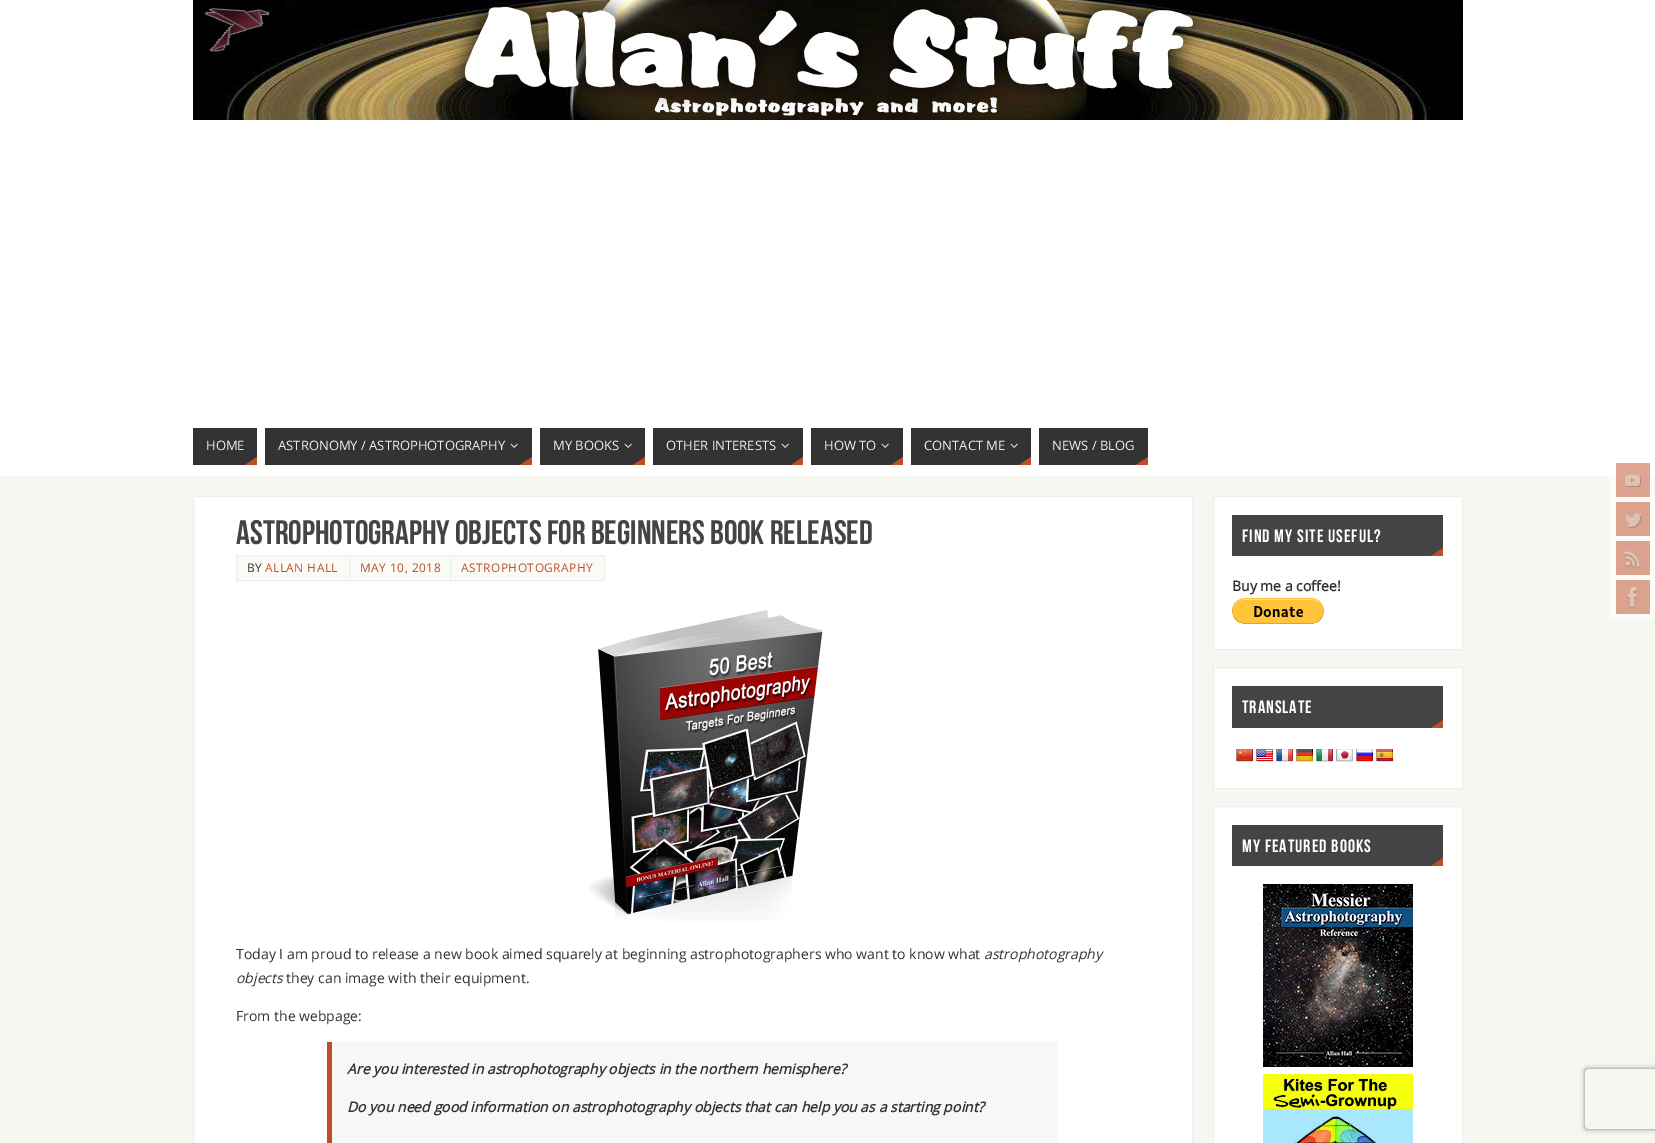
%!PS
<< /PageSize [1655 1143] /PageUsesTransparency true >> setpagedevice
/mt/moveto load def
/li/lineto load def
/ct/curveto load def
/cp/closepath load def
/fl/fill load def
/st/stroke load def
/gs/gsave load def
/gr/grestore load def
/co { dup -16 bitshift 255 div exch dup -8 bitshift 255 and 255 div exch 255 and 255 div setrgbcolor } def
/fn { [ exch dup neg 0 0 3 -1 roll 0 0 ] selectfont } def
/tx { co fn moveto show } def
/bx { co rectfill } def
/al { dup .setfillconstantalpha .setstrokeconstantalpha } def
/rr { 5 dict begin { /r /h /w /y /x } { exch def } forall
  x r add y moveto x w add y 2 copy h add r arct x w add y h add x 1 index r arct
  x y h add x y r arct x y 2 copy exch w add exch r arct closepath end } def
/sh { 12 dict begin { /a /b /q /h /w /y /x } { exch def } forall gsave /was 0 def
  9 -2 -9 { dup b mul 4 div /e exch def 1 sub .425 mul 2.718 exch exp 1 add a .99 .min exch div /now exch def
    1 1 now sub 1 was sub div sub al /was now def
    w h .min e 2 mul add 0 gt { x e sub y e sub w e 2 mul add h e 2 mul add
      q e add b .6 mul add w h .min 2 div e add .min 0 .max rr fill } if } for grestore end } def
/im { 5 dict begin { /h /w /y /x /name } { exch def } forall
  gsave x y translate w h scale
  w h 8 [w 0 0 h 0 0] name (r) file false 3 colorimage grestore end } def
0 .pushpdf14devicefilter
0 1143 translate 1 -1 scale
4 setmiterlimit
0 0 1655 1143 16#F7F7F2 bx
1610 476 45 144 16#FBFBF9 bx
1616 476 34 21 16#DDA491 bx
0 0 1655 476 16#FFFFFF bx
1616 463 34 13 16#DFA694 bx
(media/1.raw) 193 0 1270 120 im
193 428 64 37 16#333333 bx
16#BF4D28 co
257 465 mt 245 465 li 257 457 li cp fl
265 428 267 37 16#333333 bx
(media/2.raw) 510 443 8 5 im
16#BF4D28 co
532 465 mt 520 465 li 532 457 li cp fl
540 428 105 37 16#333333 bx
(media/2.raw) 624 443 8 5 im
16#BF4D28 co
645 465 mt 633 465 li 645 457 li cp fl
653 428 150 37 16#333333 bx
(media/2.raw) 781 443 8 5 im
16#BF4D28 co
803 465 mt 791 465 li 803 457 li cp fl
811 428 92 37 16#333333 bx
(media/2.raw) 881 443 8 5 im
16#BF4D28 co
903 465 mt 891 465 li 903 457 li cp fl
911 428 120 37 16#333333 bx
(media/2.raw) 1010 443 8 5 im
16#BF4D28 co
1031 465 mt 1019 465 li 1031 457 li cp fl
1039 428 109 37 16#333333 bx
16#BF4D28 co
1148 465 mt 1136 465 li 1148 457 li cp fl
16#FFFFFF co
193.5 496.5 mt 1192.5 496.5 li 1192.5 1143.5 li 193.5 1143.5 li cp gs fl gr
16#EEEEEE co
st
16#FAFAF7 co
236.5 555.5 mt 349.5 555.5 li 349.5 580.5 li 236.5 580.5 li cp gs fl gr
16#EEEEEE co
st
16#FAFAF7 co
349.5 555.5 mt 450.5 555.5 li 450.5 580.5 li 349.5 580.5 li cp gs fl gr
16#EEEEEE co
st
16#FAFAF7 co
450.5 555.5 mt 604.5 555.5 li 604.5 580.5 li 450.5 580.5 li cp gs fl gr
16#EEEEEE co
st
(media/3.raw) 589 610 234 311 im
332 1042 726 101 16#F7F7F7 bx
327 1042 5 101 16#BF4D28 bx
16#FFFFFF co
1213.5 496.5 mt 1462.5 496.5 li 1462.5 649.5 li 1213.5 649.5 li cp gs fl gr
16#EEEEEE co
st
1232 515 211 41 16#444444 bx
16#BF4D28 co
1443 556 mt 1431 556 li 1443 548 li cp fl
(media/4.raw) 1232 598 92 26 im
16#FFFFFF co
1213.5 667.5 mt 1462.5 667.5 li 1462.5 788.5 li 1213.5 788.5 li cp gs fl gr
16#EEEEEE co
st
1232 686 211 42 16#444444 bx
16#BF4D28 co
1443 728 mt 1431 728 li 1443 720 li cp fl
(media/5.raw) 1236 749 17 13 im
(media/6.raw) 1256 749 17 13 im
(media/7.raw) 1276 749 17 13 im
(media/8.raw) 1296 749 17 13 im
(media/9.raw) 1316 749 17 13 im
(media/10.raw) 1336 749 17 13 im
(media/11.raw) 1356 749 17 13 im
(media/12.raw) 1376 749 17 13 im
16#FFFFFF co
1213.5 806.5 mt 1462.5 806.5 li 1462.5 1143.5 li 1213.5 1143.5 li cp gs fl gr
16#EEEEEE co
st
1232 825 211 41 16#444444 bx
16#BF4D28 co
1443 866 mt 1431 866 li 1443 858 li cp fl
(media/13.raw) 1263 884 150 183 im
(media/14.raw) 1263 1074 150 69 im
(media/15.raw) 1625 475 16 12 im
1616 502 34 34 16#DBA28D bx
(media/16.raw) 1625 513 18 15 im
1616 541 34 34 16#DBA28D bx
(media/17.raw) 1623 551 18 18 im
1616 580 34 34 16#DBA28D bx
(media/18.raw) 1626 587 12 22 im
gs
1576 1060 mt 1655 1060 li 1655 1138 li 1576 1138 li cp 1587 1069 mt 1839 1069 li 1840 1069 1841 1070 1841 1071 ct 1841 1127 li 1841 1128 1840 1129 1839 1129 ct 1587 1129 li 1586 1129 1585 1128 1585 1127 ct 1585 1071 li 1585 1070 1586 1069 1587 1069 ct cp eoclip newpath
16#808080 co
1585 1069 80 60 2 2.5 1 sh
gr
(HOME) 206 450 /OpenSans-Regular 13 16#EEEEEE tx
(ASTRONOMY / ASTROPHOTOGRAPHY) 278 450 /OpenSans-Regular 13 16#EEEEEE tx
(MY BOOKS) 553 450 /OpenSans-Regular 13 16#EEEEEE tx
(OTHER INTERESTS) 666 450 /OpenSans-Regular 13 16#EEEEEE tx
(HOW TO) 824 450 /OpenSans-Regular 13 16#EEEEEE tx
(CONTACT ME) 924 450 /OpenSans-Regular 13 16#EEEEEE tx
(NEWS / BLOG) 1052 450 /OpenSans-Regular 13 16#EEEEEE tx
(Astrophotography objects for beginners book released) 236 544 /BebasNeue-Regular 34 16#444444 tx
/OpenSans-Regular 11.9 fn
16#333333 co
247 572 mt .5 0 (BY) ashow
16#BF4D28 co
265 572 mt .5 0 (ALLAN HALL) ashow
360 572 mt .5 0 (MAY 10, 2018) ashow
461 572 mt .5 0 (ASTROPHOTOGRAPHY) ashow
(Today I am proud to release a new book aimed squarely at beginning astrophotographers who want to know what) 236 959 /OpenSans-Regular 14 16#333333 tx
(astrophotography) 984 959 /OpenSans-Italic 14 16#333333 tx
(objects) 236 983 /OpenSans-Italic 14 16#333333 tx
(they can image with their equipment.) 286 983 /OpenSans-Regular 14 16#333333 tx
(From the webpage:) 236 1021 /OpenSans-Regular 14 16#333333 tx
(Are you interested in astrophotography objects in the northern hemisphere?) 347 1074 /OpenSans-BoldItalic 14 16#333333 tx
(Do you need good information on astrophotography objects that can help you as a starting point?) 347 1112 /OpenSans-BoldItalic 14 16#333333 tx
/BebasNeue-Regular 18 fn
16#FFFFFF co
1242 542 mt 1 0 (FIND MY SITE USEFUL?) ashow
(Buy me a coffee!) 1232 591 /OpenSans-Bold 14 16#333333 tx
/BebasNeue-Regular 18 fn
16#FFFFFF co
1242 713 mt 1 0 (TRANSLATE) ashow
1242 852 mt 1 0 (MY FEATURED BOOKS) ashow
.poppdf14devicefilter showpage
